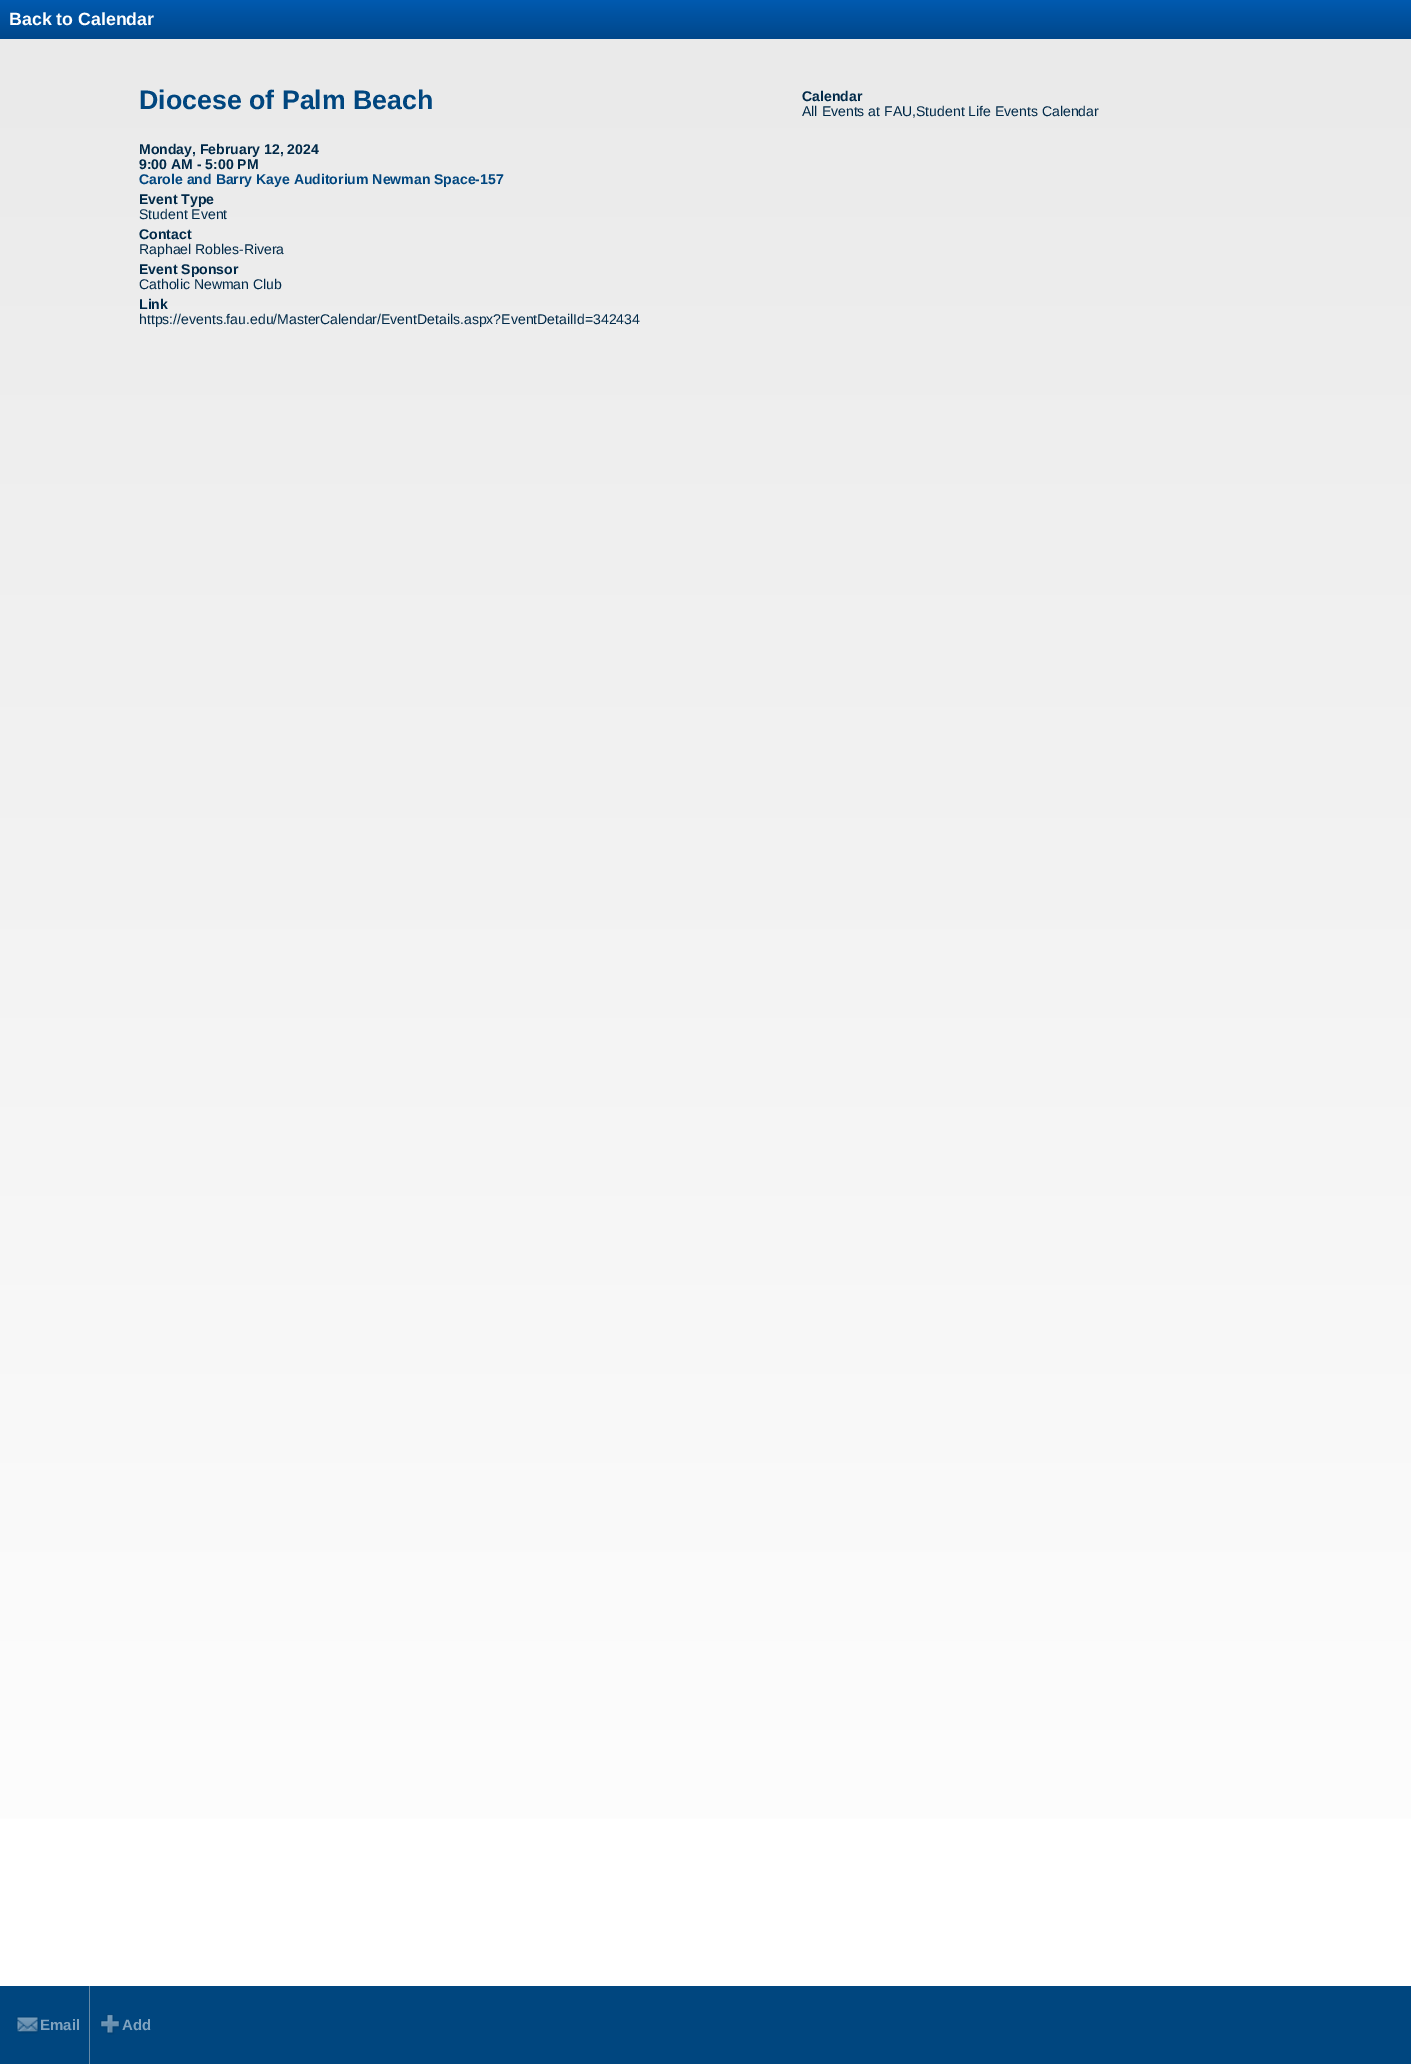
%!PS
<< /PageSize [1411 2064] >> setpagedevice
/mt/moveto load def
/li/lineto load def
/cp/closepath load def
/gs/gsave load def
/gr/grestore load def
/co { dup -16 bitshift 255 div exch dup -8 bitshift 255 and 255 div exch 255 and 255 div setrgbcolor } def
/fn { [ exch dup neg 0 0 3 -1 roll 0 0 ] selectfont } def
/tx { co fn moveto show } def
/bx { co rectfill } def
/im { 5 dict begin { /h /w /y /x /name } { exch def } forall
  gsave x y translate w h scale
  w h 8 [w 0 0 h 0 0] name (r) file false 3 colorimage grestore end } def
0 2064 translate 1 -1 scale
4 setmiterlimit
0 0 1411 2064 16#FFFFFF bx
gs 0 39 mt 1411 39 li 1411 1819 li 0 1819 li cp clip newpath
<< /ShadingType 2 /ColorSpace /DeviceRGB /Coords [706 0 706 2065] /Extend [true true] /Function << /FunctionType 2 /Domain [0 1] /C0 [.918 .918 .918] /C1 [1 1 1] /N 1 >> >> shfill gr
gs 0 0 mt 1411 0 li 1411 39 li 0 39 li cp clip newpath
<< /ShadingType 2 /ColorSpace /DeviceRGB /Coords [706 0 706 39] /Extend [true true] /Function << /FunctionType 2 /Domain [0 1] /C0 [0 .353 .69] /C1 [0 .278 .541] /N 1 >> >> shfill gr
0 1986 1411 78 16#00467F bx
(media/1.raw) 16 2016 23 18 im
89 1986 1 78 16#6689A6 bx
(media/2.raw) 100 2014 20 21 im
(Back to Calendar) 9 25 /LiberationSans-Bold 17.75 16#FFFFFF tx
(Diocese of Palm Beach) 139 109 /LiberationSans-Bold 26.75 16#00467F tx
(Monday, February 12, 2024) 139 154 /LiberationSans-Bold 14.05 16#002948 tx
(9:00 AM - 5:00 PM) 139 169 /LiberationSans-Bold 14.05 16#002948 tx
(Carole and Barry Kaye Auditorium Newman Space-157) 139 184 /LiberationSans-Bold 14.05 16#00467F tx
(Event Type) 139 204 /LiberationSans-Bold 14.05 16#002948 tx
(Student Event) 139 219 /LiberationSans-Regular 14.05 16#002948 tx
(Contact) 139 239 /LiberationSans-Bold 14.05 16#002948 tx
(Raphael Robles-Rivera) 139 254 /LiberationSans-Regular 14.05 16#002948 tx
(Event Sponsor) 139 274 /LiberationSans-Bold 14.05 16#002948 tx
(Catholic Newman Club) 139 289 /LiberationSans-Regular 14.05 16#002948 tx
(Link) 139 309 /LiberationSans-Bold 14.05 16#002948 tx
(https://events.fau.edu/MasterCalendar/EventDetails.aspx?EventDetailId=342434) 139 324 /LiberationSans-Regular 14.05 16#002948 tx
(Calendar) 802 101 /LiberationSans-Bold 14.05 16#002948 tx
(All Events at FAU,Student Life Events Calendar) 802 116 /LiberationSans-Regular 14.05 16#002948 tx
(Email) 40 2030 /LiberationSans-Bold 15 16#80A3BF tx
(Add) 122 2030 /LiberationSans-Bold 15 16#80A3BF tx
showpage
